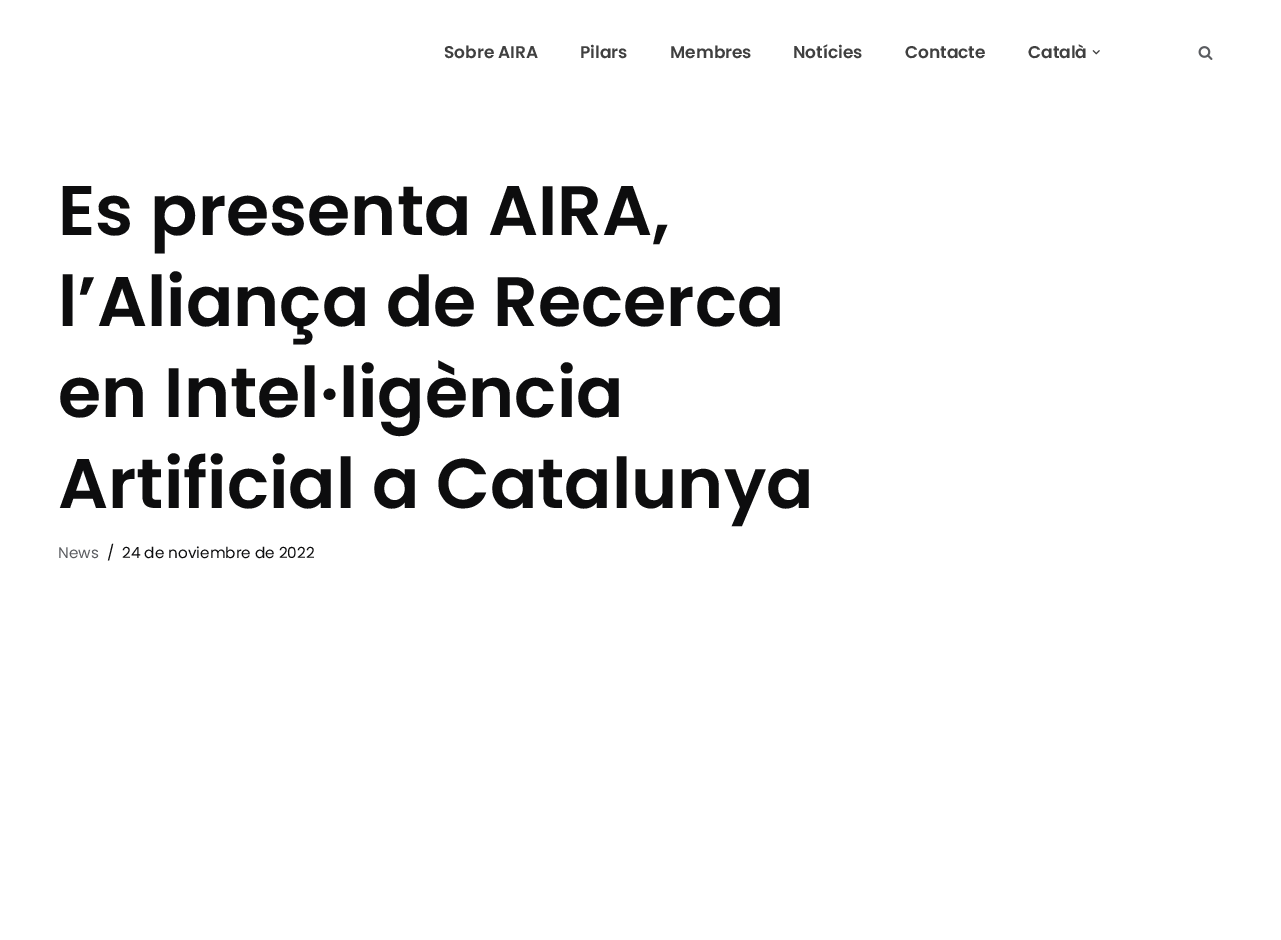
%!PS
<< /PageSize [1281 940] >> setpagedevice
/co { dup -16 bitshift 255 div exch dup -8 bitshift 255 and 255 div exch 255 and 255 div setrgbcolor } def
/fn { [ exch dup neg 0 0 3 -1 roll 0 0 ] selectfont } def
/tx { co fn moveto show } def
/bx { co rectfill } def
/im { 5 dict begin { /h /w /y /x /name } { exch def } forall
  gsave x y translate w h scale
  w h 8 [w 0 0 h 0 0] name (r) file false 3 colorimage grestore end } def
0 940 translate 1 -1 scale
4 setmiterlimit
0 0 1281 940 16#FFFFFF bx
(media/1.raw) 1092 50 8 5 im
(media/2.raw) 1198 46 15 14 im
(Sobre AIRA) 444 58 /Poppins-SemiBold 17 16#404040 tx
(Pilars) 580 58 /Poppins-SemiBold 17 16#404040 tx
(Membres) 670 58 /Poppins-SemiBold 17 16#404040 tx
(Notícies) 793 58 /Poppins-SemiBold 17 16#404040 tx
(Contacte) 905 58 /Poppins-SemiBold 17 16#404040 tx
(Català) 1028 58 /Poppins-SemiBold 17 16#404040 tx
(Es presenta AIRA,) 58 235 /Poppins-SemiBold 70 16#0D0D0E tx
(l’Aliança de Recerca) 58 326 /Poppins-SemiBold 70 16#0D0D0E tx
(en Intel·ligència) 58 417 /Poppins-SemiBold 70 16#0D0D0E tx
(Artificial a Catalunya) 58 508 /Poppins-SemiBold 70 16#0D0D0E tx
(News) 58 558 /Poppins-Regular 15.25 16#5A5C60 tx
(/) 107 558 /Poppins-Regular 15.25 16#0D0D0E tx
(24 de noviembre de 2022) 122 558 /Poppins-Regular 15.25 16#0D0D0E tx
showpage
